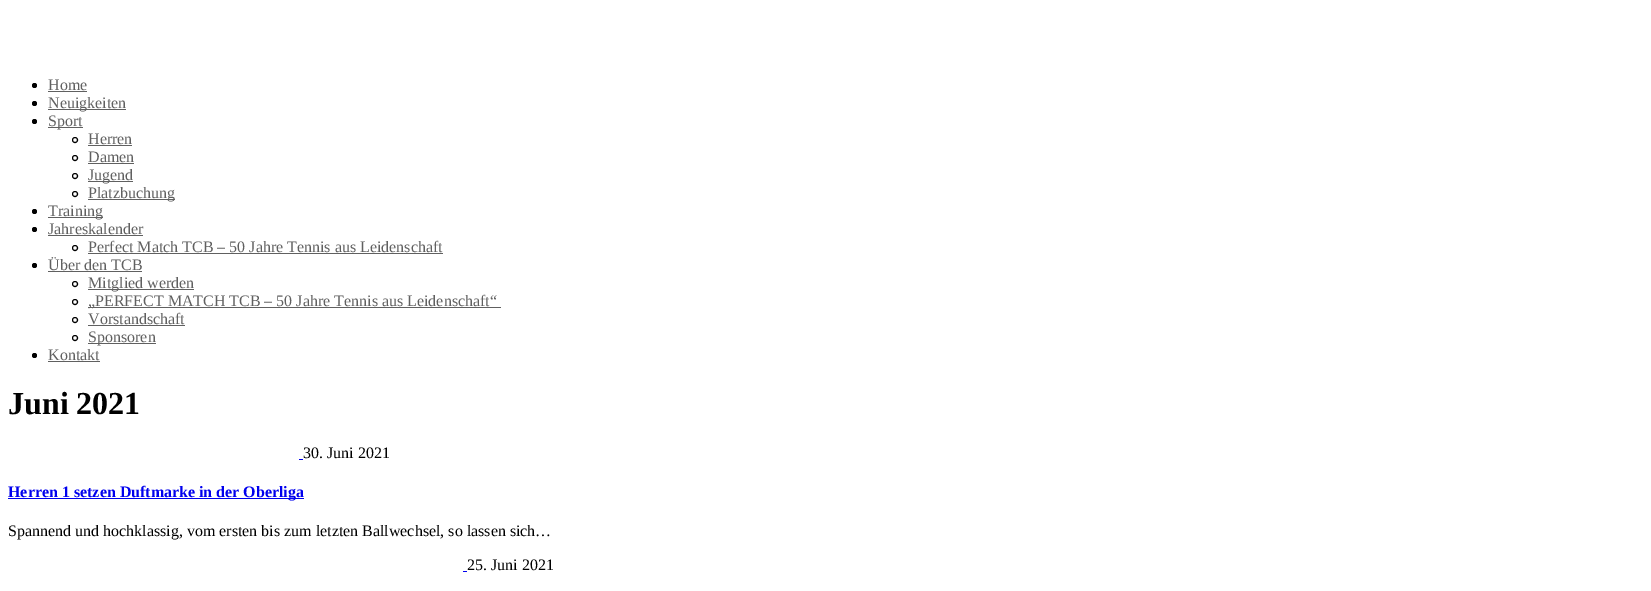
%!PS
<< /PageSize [1651 591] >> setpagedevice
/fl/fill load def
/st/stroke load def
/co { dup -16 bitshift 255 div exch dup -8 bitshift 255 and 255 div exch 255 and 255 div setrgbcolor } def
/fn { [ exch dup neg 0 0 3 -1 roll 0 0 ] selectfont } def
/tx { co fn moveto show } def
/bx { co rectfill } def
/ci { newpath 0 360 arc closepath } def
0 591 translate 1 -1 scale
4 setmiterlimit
0 0 1651 591 16#FFFFFF bx
16#000000 co
34.5 85.5 2.5 ci fl
48 91 39 1 16#606060 bx
16#000000 co
34.5 103.5 2.5 ci fl
48 109 78 1 16#606060 bx
16#000000 co
34.5 121.5 2.5 ci fl
48 127 35 1 16#606060 bx
16#000000 co
75 140 2.5 ci st
88 145 44 1 16#606060 bx
16#000000 co
75 158 2.5 ci st
88 163 46 1 16#606060 bx
16#000000 co
75 176 2.5 ci st
88 181 45 1 16#606060 bx
16#000000 co
75 194 2.5 ci st
88 199 87 1 16#606060 bx
16#000000 co
34.5 211.5 2.5 ci fl
48 217 55 1 16#606060 bx
16#000000 co
34.5 229.5 2.5 ci fl
48 235 95 1 16#606060 bx
16#000000 co
75 248 2.5 ci st
88 253 355 1 16#606060 bx
16#000000 co
34.5 265.5 2.5 ci fl
48 271 94 1 16#606060 bx
16#000000 co
75 284 2.5 ci st
88 289 106 1 16#606060 bx
16#000000 co
75 302 2.5 ci st
88 307 413 1 16#606060 bx
16#000000 co
75 320 2.5 ci st
88 325 97 1 16#606060 bx
16#000000 co
75 338 2.5 ci st
88 343 68 1 16#606060 bx
16#000000 co
34.5 355.5 2.5 ci fl
48 361 52 1 16#606060 bx
299 459 4 1 16#0000EE bx
8 498 296 1 16#0000EE bx
463 571 4 1 16#0000EE bx
(Home) 48 90 /LiberationSerif-Regular 16 16#606060 tx
(Neuigkeiten) 48 108 /LiberationSerif-Regular 16 16#606060 tx
(Sport) 48 126 /LiberationSerif-Regular 16 16#606060 tx
(Herren) 88 144 /LiberationSerif-Regular 16 16#606060 tx
(Damen) 88 162 /LiberationSerif-Regular 16 16#606060 tx
(Jugend) 88 180 /LiberationSerif-Regular 16 16#606060 tx
(Platzbuchung) 88 198 /LiberationSerif-Regular 16 16#606060 tx
(Training) 48 216 /LiberationSerif-Regular 16 16#606060 tx
(Jahreskalender) 48 234 /LiberationSerif-Regular 16 16#606060 tx
(Perfect Match TCB – 50 Jahre Tennis aus Leidenschaft) 88 252 /LiberationSerif-Regular 16 16#606060 tx
(Über den TCB) 48 270 /LiberationSerif-Regular 16 16#606060 tx
(Mitglied werden) 88 288 /LiberationSerif-Regular 16 16#606060 tx
(„PERFECT MATCH TCB – 50 Jahre Tennis aus Leidenschaft“) 88 306 /LiberationSerif-Regular 16 16#606060 tx
(Vorstandschaft) 88 324 /LiberationSerif-Regular 16 16#606060 tx
(Sponsoren) 88 342 /LiberationSerif-Regular 16 16#606060 tx
(Kontakt) 48 360 /LiberationSerif-Regular 16 16#606060 tx
(Juni 2021) 8 414 /LiberationSerif-Bold 32 16#000000 tx
(30. Juni 2021) 303 458 /LiberationSerif-Regular 16 16#000000 tx
(Herren 1 setzen Duftmarke in der Oberliga) 8 497 /LiberationSerif-Bold 16 16#0000EE tx
(Spannend und hochklassig, vom ersten bis zum letzten Ballwechsel, so lassen sich…) 8 536 /LiberationSerif-Regular 16 16#000000 tx
(25. Juni 2021) 467 570 /LiberationSerif-Regular 16 16#000000 tx
showpage
